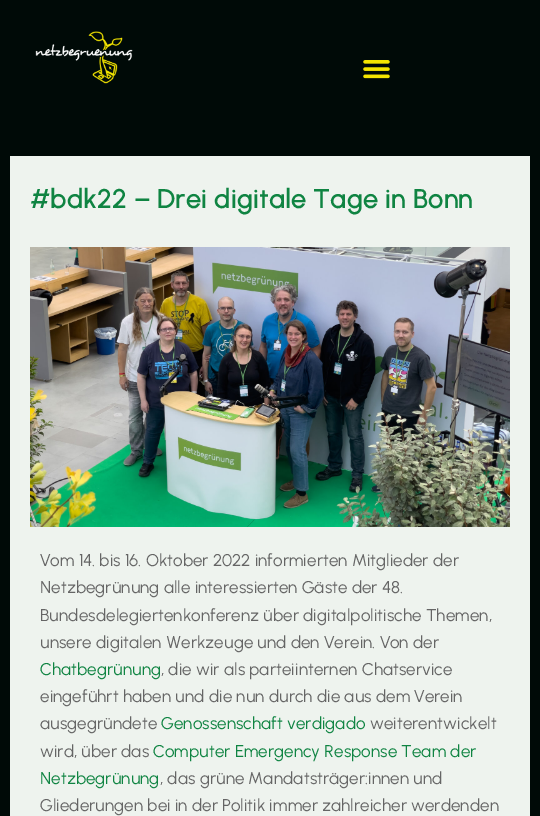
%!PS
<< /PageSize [540 816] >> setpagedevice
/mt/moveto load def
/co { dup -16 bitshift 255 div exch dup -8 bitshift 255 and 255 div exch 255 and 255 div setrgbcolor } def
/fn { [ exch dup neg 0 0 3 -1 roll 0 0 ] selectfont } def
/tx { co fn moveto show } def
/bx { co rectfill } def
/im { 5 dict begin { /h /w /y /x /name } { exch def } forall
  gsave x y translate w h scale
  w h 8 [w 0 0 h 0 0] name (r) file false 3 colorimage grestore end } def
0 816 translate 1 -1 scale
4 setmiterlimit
0 0 540 816 16#000A07 bx
(media/1.raw) 35 31 98 53 im
(media/2.raw) 363 60 27 19 im
10 156 520 660 16#EEF3EE bx
(media/3.raw) 30 247 480 280 im
/Urbanist-Bold 26 fn
16#0F8442 co
30 208 mt .7 0 (#bdk22 – Drei digitale Tage in Bonn) ashow
(Vom 14. bis 16. Oktober 2022 informierten Mitglieder der) 40 566 /Urbanist-Regular 17 16#656565 tx
(Netzbegrünung alle interessierten Gäste der 48.) 40 593 /Urbanist-Regular 17 16#656565 tx
(Bundesdelegiertenkonferenz über digitalpolitische Themen,) 40 621 /Urbanist-Regular 17 16#656565 tx
(unsere digitalen Werkzeuge und den Verein. Von der) 40 648 /Urbanist-Regular 17 16#656565 tx
(Chatbegrünung) 40 675 /Urbanist-Regular 17 16#0F8442 tx
(, die wir als parteiinternen Chatservice) 161 675 /Urbanist-Regular 17 16#656565 tx
(eingeführt haben und die nun durch die aus dem Verein) 40 702 /Urbanist-Regular 17 16#656565 tx
(ausgegründete) 40 729 /Urbanist-Regular 17 16#656565 tx
(Genossenschaft verdigado) 161 729 /Urbanist-Regular 17 16#0F8442 tx
(weiterentwickelt) 370 729 /Urbanist-Regular 17 16#656565 tx
(wird, über das) 40 757 /Urbanist-Regular 17 16#656565 tx
(Computer Emergency Response Team der) 153 757 /Urbanist-Regular 17 16#0F8442 tx
(Netzbegrünung) 40 784 /Urbanist-Regular 17 16#0F8442 tx
(, das grüne Mandatsträger:innen und) 160 784 /Urbanist-Regular 17 16#656565 tx
(Gliederungen bei in der Politik immer zahlreicher werdenden) 40 811 /Urbanist-Regular 17 16#656565 tx
showpage
